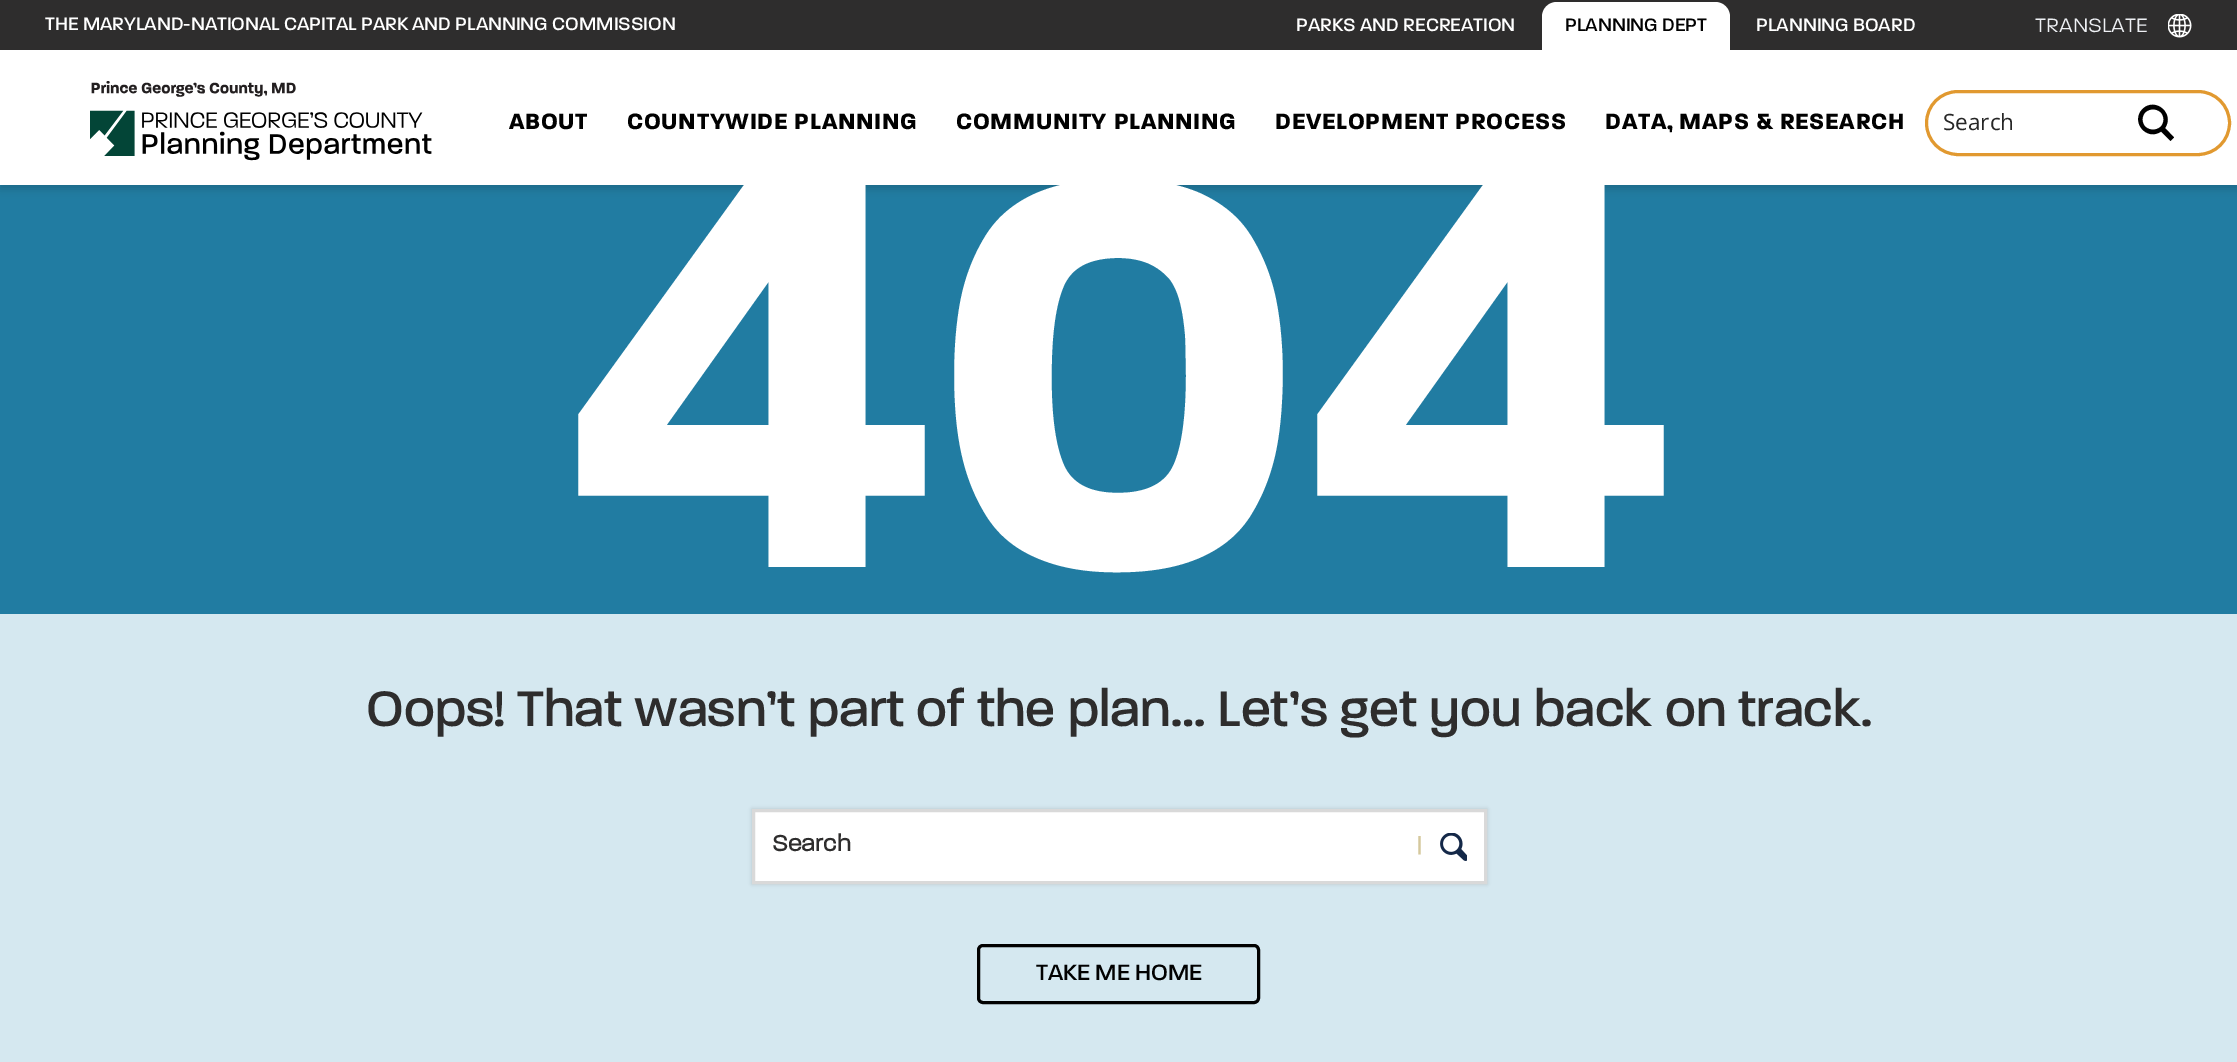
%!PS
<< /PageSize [2237 1062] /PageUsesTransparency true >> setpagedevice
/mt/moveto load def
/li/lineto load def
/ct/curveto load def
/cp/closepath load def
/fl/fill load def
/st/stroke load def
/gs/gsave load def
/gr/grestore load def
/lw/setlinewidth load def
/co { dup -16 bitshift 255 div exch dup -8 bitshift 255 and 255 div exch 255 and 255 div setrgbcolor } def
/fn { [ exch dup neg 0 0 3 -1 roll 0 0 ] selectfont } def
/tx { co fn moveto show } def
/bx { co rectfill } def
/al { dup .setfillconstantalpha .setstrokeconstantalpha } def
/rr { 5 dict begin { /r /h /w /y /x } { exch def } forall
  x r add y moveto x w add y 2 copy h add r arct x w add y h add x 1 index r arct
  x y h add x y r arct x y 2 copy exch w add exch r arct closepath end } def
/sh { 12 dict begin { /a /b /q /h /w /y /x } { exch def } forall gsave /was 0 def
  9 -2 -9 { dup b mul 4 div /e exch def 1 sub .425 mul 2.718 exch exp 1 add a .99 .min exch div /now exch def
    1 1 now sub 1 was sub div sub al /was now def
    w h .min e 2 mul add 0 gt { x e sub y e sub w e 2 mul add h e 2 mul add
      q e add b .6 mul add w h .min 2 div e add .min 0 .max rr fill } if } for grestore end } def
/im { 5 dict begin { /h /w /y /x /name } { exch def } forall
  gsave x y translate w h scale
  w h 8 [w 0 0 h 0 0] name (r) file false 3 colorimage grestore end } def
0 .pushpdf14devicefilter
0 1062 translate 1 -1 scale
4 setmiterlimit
0 0 2237 1062 16#217CA2 bx
16#000000 co
0 5 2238 184 0 4.5 .16 sh
0 50 2237 135 16#FFFFFF bx
0 0 2237 50 16#2E2D2D bx
16#FFFFFF co
1557 2 mt 1715 2 li 1723.5 2 1730 8.5 1730 17 ct 1730 51 li 1542 51 li 1542 17 li 1542 8.5 1548.5 2 1557 2 ct cp fl
(media/1.raw) 2168 14 24 24 im
(media/2.raw) 90 81 342 80 im
16#E19930 co
3 lw
1926.5 91.5 303 63 31.5 rr st
16#000000 co
2174 137.5 mt 2165 128 li 2175 114 2155.5 96.5 2142.5 109 ct 2130 122 2147 141.5 2161 131.5 ct 2170.5 141 li cp 2142.5 119.5 mt 2142.5 106 2163.5 106 2163.5 119.5 ct 2163.5 133 2142.5 133 2142.5 119.5 ct cp fl
0 614 2237 448 16#D5E8F0 bx
16#000000 co
752 809 735 75 0 2 .16 sh
16#FFFFFF co
753.5 810.5 mt 1485.5 810.5 li 1485.5 882.5 li 753.5 882.5 li cp gs fl gr
16#D9D9D9 co
st
(media/3.raw) 1440 833 27 28 im
16#010101 co
978.5 945.5 280 57 4.5 rr st
(THE MARYLAND-NATIONAL CAPITAL PARK AND PLANNING COMMISSION) 45 30 /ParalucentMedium-Medium 19.5 16#FFFFFF tx
(PARKS AND RECREATION) 1296 31 /ParalucentMedium-Medium 19.5 16#FFFFFF tx
(PLANNING DEPT) 1565 31 /ParalucentMedium-Medium 19.5 16#010101 tx
(PLANNING BOARD) 1756 31 /ParalucentMedium-Medium 19.5 16#FFFFFF tx
(TRANSLATE) 2035 32 /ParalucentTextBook-Regular 21 16#EEF0F4 tx
/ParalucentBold-Bold 24 fn
16#010101 co
509 129 mt .7 0 (ABOUT) ashow
627 129 mt .7 0 (COUNTYWIDE PLANNING) ashow
956 129 mt .7 0 (COMMUNITY PLANNING) ashow
1275 129 mt .7 0 (DEVELOPMENT PROCESS) ashow
1605 129 mt .7 0 (DATA, MAPS & RESEARCH) ashow
(Search) 1943 130 /OpenSans-Regular 22.5 16#262626 tx
(404) 568 567 /ParalucentBold-Bold 600 16#FFFFFF tx
(Oops! That wasn’t part of the plan… Let’s get you back on track.) 366 726 /ParalucentMedium-Medium 54 16#2E2D2D tx
(Search) 772 851 /ParalucentTextBook-Bold 24 16#2E2D2D tx
(|) 1417 853 /ParalucentMedium-Medium 24 16#D5C89D tx
(TAKE ME HOME) 1036 980 /ParalucentMedium-Medium 24 16#010101 tx
.poppdf14devicefilter showpage
